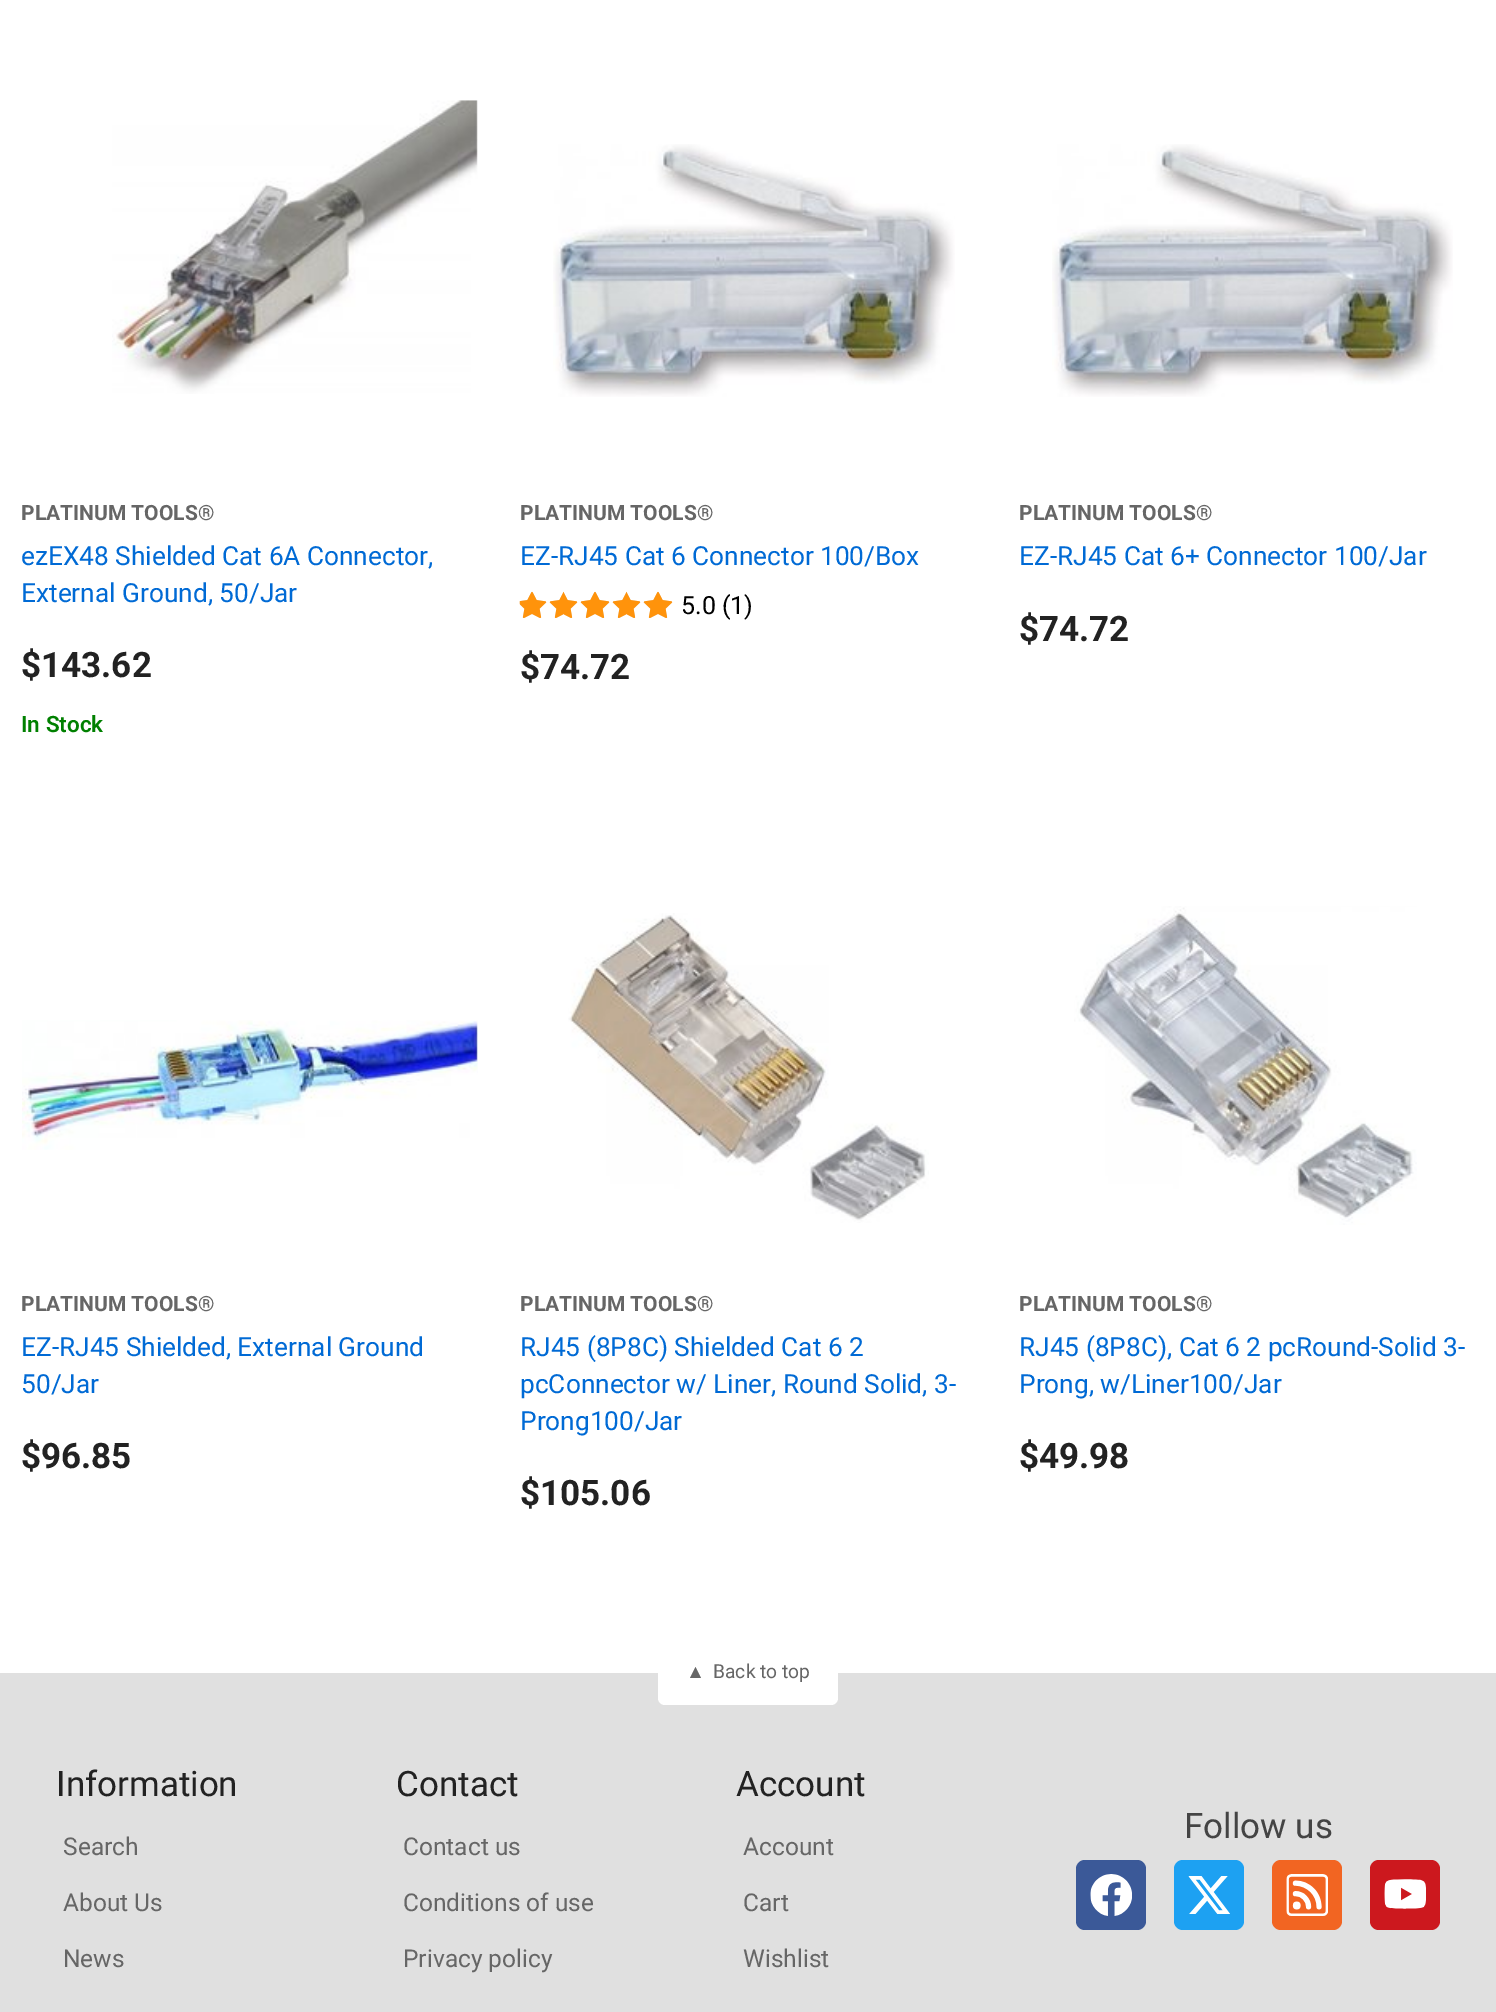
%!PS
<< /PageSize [1496 2012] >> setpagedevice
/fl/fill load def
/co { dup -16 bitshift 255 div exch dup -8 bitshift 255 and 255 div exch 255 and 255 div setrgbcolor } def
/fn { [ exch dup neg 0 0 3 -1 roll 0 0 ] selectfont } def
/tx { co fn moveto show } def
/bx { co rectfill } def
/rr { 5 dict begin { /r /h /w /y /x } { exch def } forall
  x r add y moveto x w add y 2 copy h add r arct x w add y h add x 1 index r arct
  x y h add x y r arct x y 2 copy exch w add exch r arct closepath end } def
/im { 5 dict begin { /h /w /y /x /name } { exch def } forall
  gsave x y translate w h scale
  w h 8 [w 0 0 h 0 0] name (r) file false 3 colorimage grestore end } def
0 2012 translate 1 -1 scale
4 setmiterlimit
0 0 1496 2012 16#FFFFFF bx
(media/1.raw) 112 100 366 294 im
(media/2.raw) 553 144 402 253 im
(media/3.raw) 519 592 153 26 im
(media/4.raw) 519 591 154 27 im
(media/5.raw) 1052 144 401 253 im
(media/6.raw) 22 1020 456 130 im
(media/7.raw) 568 913 361 310 im
(media/8.raw) 1074 906 343 319 im
0 1673 1496 339 16#E0E0E0 bx
16#FFFFFF co
658 1640 180 65 7 rr fl
16#3B5998 co
1076 1860 70 70 9 rr fl
(media/9.raw) 1090 1874 42 42 im
16#1DA1F2 co
1174 1860 70 70 9 rr fl
(media/10.raw) 1188 1876 42 38 im
16#F26522 co
1272 1860 70 70 9 rr fl
(media/11.raw) 1286 1874 42 42 im
16#CC181E co
1370 1860 70 70 9 rr fl
(media/12.raw) 1384 1879 42 30 im
(PLATINUM TOOLS®) 21 520 /Roboto-Bold 21 16#666666 tx
(ezEX48 Shielded Cat 6A Connector,) 21 565 /Roboto-Regular 26.25 16#006AD5 tx
(External Ground, 50/Jar) 21 602 /Roboto-Regular 26.25 16#006AD5 tx
($143.62) 21 677 /Roboto-Bold 35 16#222222 tx
(In Stock) 21 732 /Roboto-SemiBold 22.5 16#008000 tx
(PLATINUM TOOLS®) 520 520 /Roboto-Bold 21 16#666666 tx
(EZ-RJ45 Cat 6 Connector 100/Box) 520 565 /Roboto-Regular 26.25 16#006AD5 tx
(5.0 \(1\)) 681 614 /Roboto-Regular 25 16#000000 tx
($74.72) 520 679 /Roboto-Bold 35 16#222222 tx
(PLATINUM TOOLS®) 1019 520 /Roboto-Bold 21 16#666666 tx
(EZ-RJ45 Cat 6+ Connector 100/Jar) 1019 565 /Roboto-Regular 26.25 16#006AD5 tx
($74.72) 1019 641 /Roboto-Bold 35 16#222222 tx
(PLATINUM TOOLS®) 21 1311 /Roboto-Bold 21 16#666666 tx
(EZ-RJ45 Shielded, External Ground) 21 1356 /Roboto-Regular 26.25 16#006AD5 tx
(50/Jar) 21 1393 /Roboto-Regular 26.25 16#006AD5 tx
($96.85) 21 1468 /Roboto-Bold 35 16#222222 tx
(PLATINUM TOOLS®) 520 1311 /Roboto-Bold 21 16#666666 tx
(RJ45 \(8P8C\) Shielded Cat 6 2) 520 1356 /Roboto-Regular 26.25 16#006AD5 tx
(pcConnector w/ Liner, Round Solid, 3-) 520 1393 /Roboto-Regular 26.25 16#006AD5 tx
(Prong100/Jar) 520 1430 /Roboto-Regular 26.25 16#006AD5 tx
($105.06) 520 1505 /Roboto-Bold 35 16#222222 tx
(PLATINUM TOOLS®) 1019 1311 /Roboto-Bold 21 16#666666 tx
(RJ45 \(8P8C\), Cat 6 2 pcRound-Solid 3-) 1019 1356 /Roboto-Regular 26.25 16#006AD5 tx
(Prong, w/Liner100/Jar) 1019 1393 /Roboto-Regular 26.25 16#006AD5 tx
($49.98) 1019 1468 /Roboto-Bold 35 16#222222 tx
(▲) 686 1678 /LiberationSans-Regular 19.25 16#666666 tx
(Back to top) 713 1678 /Roboto-Regular 19.25 16#666666 tx
(Information) 56 1796 /Roboto-Regular 35 16#222222 tx
(Search) 63 1855 /Roboto-Regular 24.5 16#666666 tx
(About Us) 63 1911 /Roboto-Regular 24.5 16#666666 tx
(News) 63 1967 /Roboto-Regular 24.5 16#666666 tx
(Contact) 396 1796 /Roboto-Regular 35 16#222222 tx
(Contact us) 403 1855 /Roboto-Regular 24.5 16#666666 tx
(Conditions of use) 403 1911 /Roboto-Regular 24.5 16#666666 tx
(Privacy policy) 403 1967 /Roboto-Regular 24.5 16#666666 tx
(Account) 736 1796 /Roboto-Regular 35 16#222222 tx
(Account) 743 1855 /Roboto-Regular 24.5 16#666666 tx
(Cart) 743 1911 /Roboto-Regular 24.5 16#666666 tx
(Wishlist) 743 1967 /Roboto-Regular 24.5 16#666666 tx
(Follow us) 1184 1838 /Roboto-Regular 35 16#444444 tx
showpage
